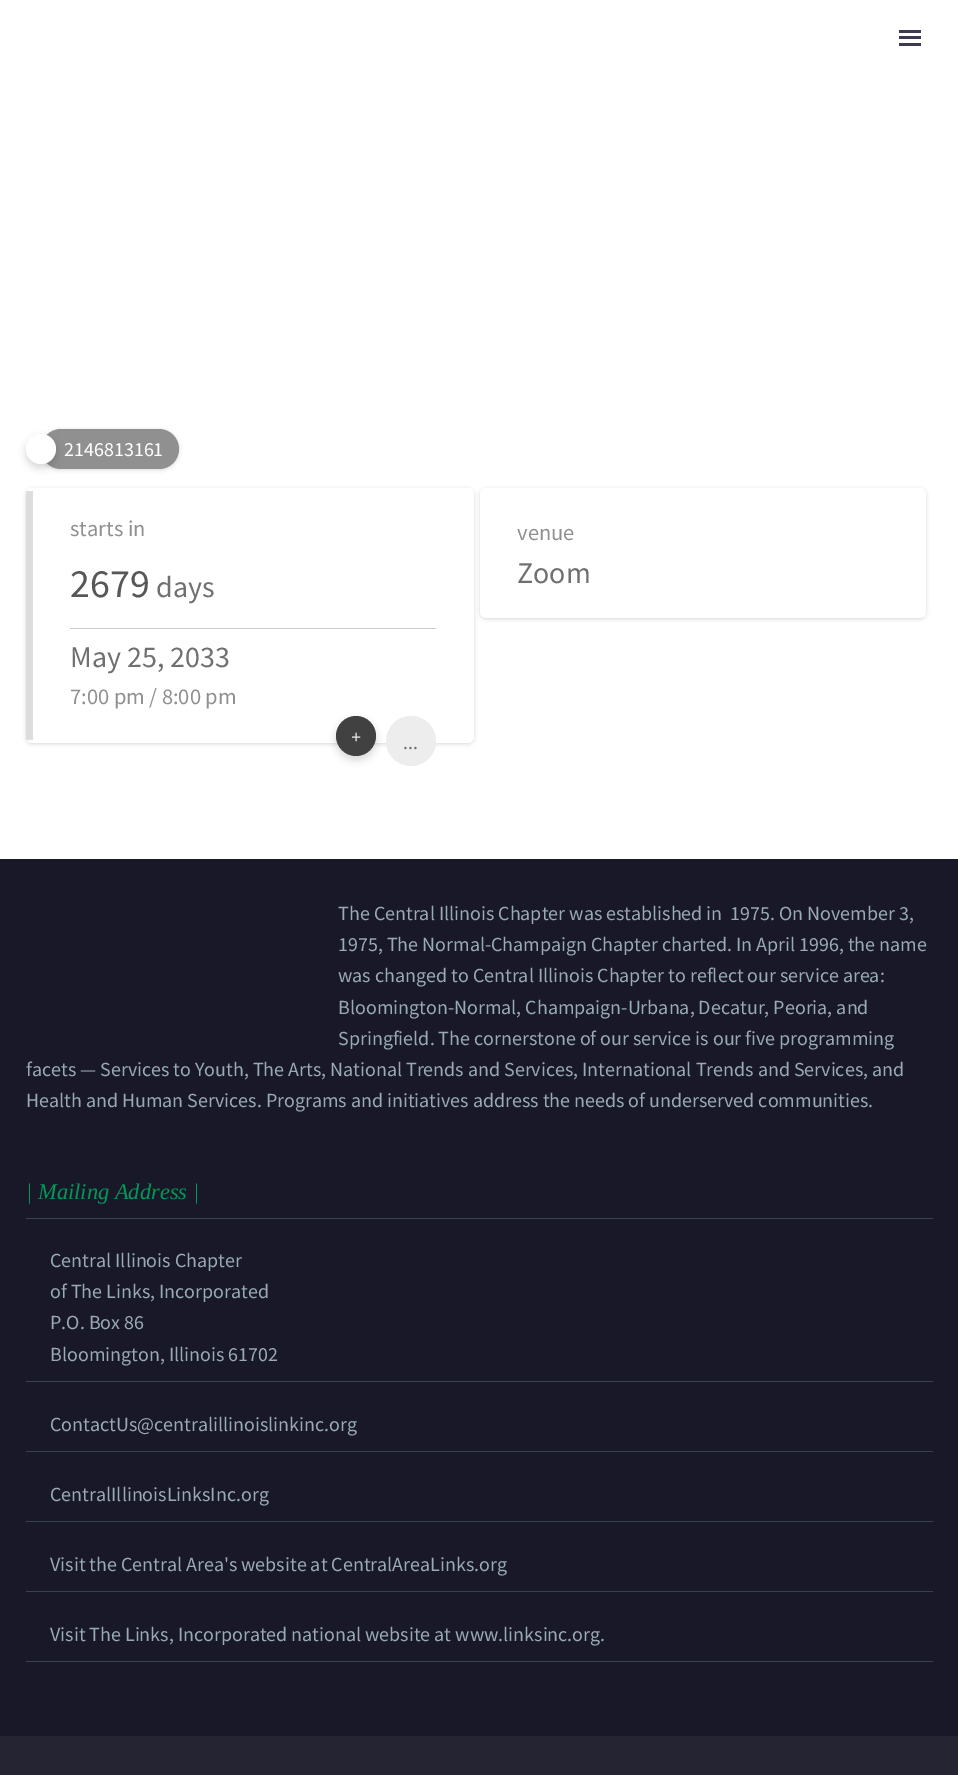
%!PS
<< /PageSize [958 1775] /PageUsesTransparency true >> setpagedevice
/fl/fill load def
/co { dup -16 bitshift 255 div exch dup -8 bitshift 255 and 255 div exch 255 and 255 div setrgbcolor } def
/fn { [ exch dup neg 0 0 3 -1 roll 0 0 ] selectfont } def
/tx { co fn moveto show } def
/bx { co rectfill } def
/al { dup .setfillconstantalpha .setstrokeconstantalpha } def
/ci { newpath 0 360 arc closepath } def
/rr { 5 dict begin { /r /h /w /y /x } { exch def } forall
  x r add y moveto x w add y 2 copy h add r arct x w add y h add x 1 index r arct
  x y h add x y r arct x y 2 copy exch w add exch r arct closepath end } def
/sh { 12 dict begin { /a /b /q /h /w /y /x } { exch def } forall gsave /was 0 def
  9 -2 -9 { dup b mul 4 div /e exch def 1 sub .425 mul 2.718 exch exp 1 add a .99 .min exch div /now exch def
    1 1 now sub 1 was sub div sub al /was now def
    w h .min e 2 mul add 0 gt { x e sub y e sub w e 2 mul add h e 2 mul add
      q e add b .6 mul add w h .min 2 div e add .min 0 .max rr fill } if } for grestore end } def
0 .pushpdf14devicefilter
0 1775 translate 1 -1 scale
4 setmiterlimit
0 0 958 1775 16#FFFFFF bx
899 30 22 3 16#3C3950 bx
899 36 22 3 16#3C3950 bx
899 43 22 3 16#3C3950 bx
16#000000 co
41 430 138 40 20 2 .15 sh
16#909090 co
41 429 138 40 20 rr fl
16#000000 co
26 438 30 30 15 4 .15 sh
16#FFFFFF co
41 449 15 ci fl
16#000000 co
480 489 446 130 6 2 .15 sh
16#FFFFFF co
480 488 446 130 6 rr fl
16#000000 co
26 489 448 255 6 2 .15 sh
16#FFFFFF co
26 488 448 255 6 rr fl
26 491 7 249 16#DDDDDD bx
70 628 366 1 16#CCCCCC bx
16#EDEDED co
411 741 25 ci fl
16#000000 co
336 720 40 40 20 4 .15 sh
16#414141 co
356 736 20 ci fl
0 859 958 877 16#181828 bx
26 1218 907 1 16#394050 bx
26 1381 907 1 16#394050 bx
26 1451 907 1 16#394050 bx
26 1521 907 1 16#394050 bx
26 1591 907 1 16#394050 bx
26 1661 907 1 16#394050 bx
0 1736 958 39 16#242433 bx
(2146813161) 64 456 /SourceSansPro-Regular 20 16#FFFFFF tx
(starts in) 70 536 /SourceSansPro-Regular 22.5 16#909090 tx
(2679) 70 597 /SourceSansPro-Regular 40 16#575757 tx
(days) 156 597 /SourceSansPro-Regular 30 16#707070 tx
(May 25, 2033) 70 667 /SourceSansPro-Regular 30 16#707070 tx
(7:00 pm / 8:00 pm) 70 704 /SourceSansPro-Regular 22.5 16#909090 tx
(+) 351 743 /LiberationSerif-Bold 18 16#EDEDED tx
(...) 403 749 /SourceSansPro-Regular 20 16#707070 tx
(venue) 517 540 /SourceSansPro-Regular 22.5 16#909090 tx
(Zoom) 517 583 /SourceSansPro-Regular 30 16#707070 tx
(The Central Illinois Chapter was established in  1975. On November 3,) 338 920 /SourceSansPro-Regular 20 16#99A9B5 tx
(1975, The Normal-Champaign Chapter charted. In April 1996, the name) 338 951 /SourceSansPro-Regular 20 16#99A9B5 tx
(was changed to Central Illinois Chapter to reflect our service area:) 338 982 /SourceSansPro-Regular 20 16#99A9B5 tx
(Bloomington-Normal, Champaign-Urbana, Decatur, Peoria, and) 338 1014 /SourceSansPro-Regular 20 16#99A9B5 tx
(Springfield. The cornerstone of our service is our five programming) 338 1045 /SourceSansPro-Regular 20 16#99A9B5 tx
(facets — Services to Youth, The Arts, National Trends and Services, International Trends and Services, and) 26 1076 /SourceSansPro-Regular 20 16#99A9B5 tx
(Health and Human Services. Programs and initiatives address the needs of underserved communities.) 26 1107 /SourceSansPro-Regular 20 16#99A9B5 tx
(| Mailing Address |) 26 1199 /LiberationSerif-Italic 22.5 16#009959 tx
(Central Illinois Chapter) 50 1267 /SourceSansPro-Regular 20 16#99A9B5 tx
(of The Links, Incorporated) 50 1298 /SourceSansPro-Regular 20 16#99A9B5 tx
(P.O. Box 86) 50 1329 /SourceSansPro-Regular 20 16#99A9B5 tx
(Bloomington, Illinois 61702) 50 1361 /SourceSansPro-Regular 20 16#99A9B5 tx
(ContactUs@centralillinoislinkinc.org) 50 1431 /SourceSansPro-Regular 20 16#99A9B5 tx
(CentralIllinoisLinksInc.org) 50 1501 /SourceSansPro-Regular 20 16#99A9B5 tx
(Visit the Central Area's website at CentralAreaLinks.org) 50 1571 /SourceSansPro-Regular 20 16#99A9B5 tx
(Visit The Links, Incorporated national website at www.linksinc.org.) 50 1641 /SourceSansPro-Regular 20 16#99A9B5 tx
.poppdf14devicefilter showpage
